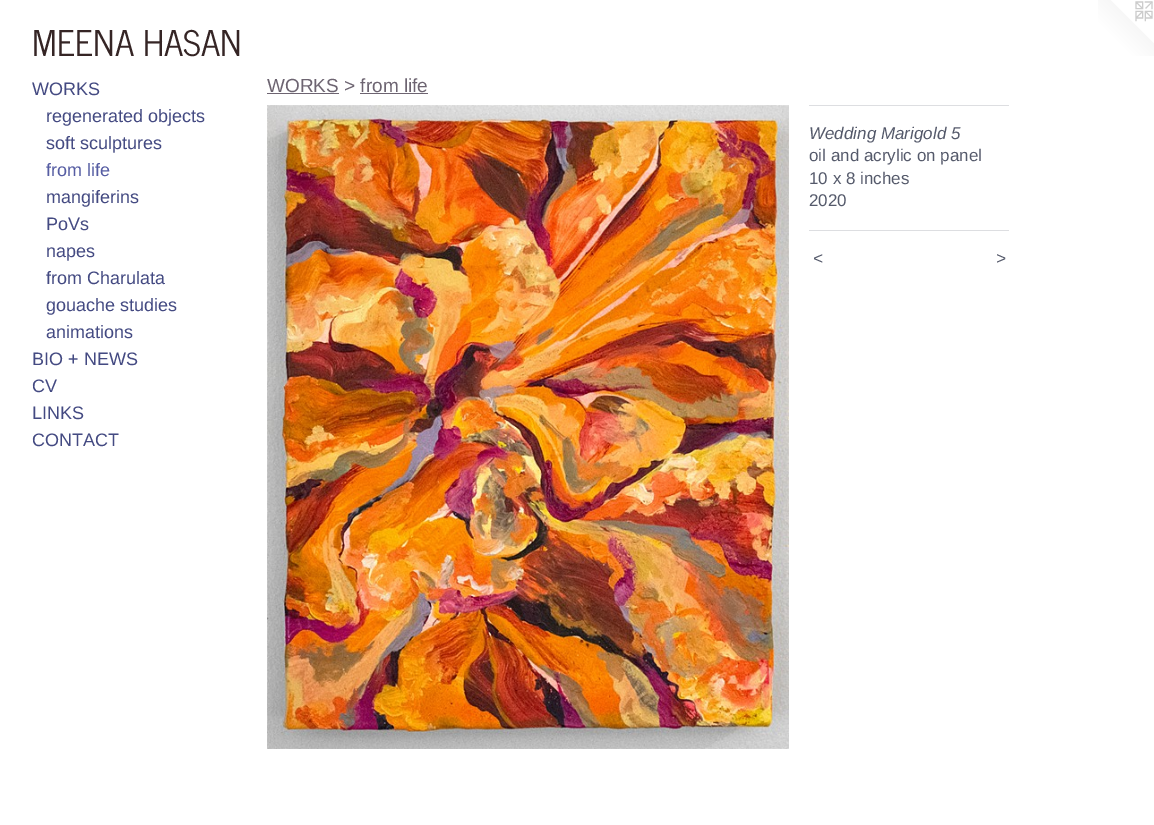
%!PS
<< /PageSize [1154 825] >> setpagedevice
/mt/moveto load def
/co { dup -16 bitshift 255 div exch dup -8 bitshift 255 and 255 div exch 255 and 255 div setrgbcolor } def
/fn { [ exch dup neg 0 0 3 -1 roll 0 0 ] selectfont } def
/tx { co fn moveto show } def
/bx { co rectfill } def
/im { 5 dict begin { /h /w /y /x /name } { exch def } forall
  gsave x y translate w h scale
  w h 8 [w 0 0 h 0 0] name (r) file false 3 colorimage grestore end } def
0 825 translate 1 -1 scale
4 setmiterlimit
0 0 1154 825 16#FFFFFF bx
(media/1.raw) 1098 0 56 56 im
267 93 72 1 16#6D6471 bx
360 93 68 1 16#6D6471 bx
(media/2.raw) 267 105 522 644 im
809 105 200 1 16#DDDEE1 bx
809 230 200 1 16#DDDEE1 bx
(MEENA HASAN) 32 56 /NewsCycle-Regular 35 16#352525 tx
(WORKS) 32 95 /LiberationSans-Regular 18 16#444A82 tx
(regenerated objects) 46 122 /LiberationSans-Regular 18 16#444A82 tx
(soft sculptures) 46 149 /LiberationSans-Regular 18 16#444A82 tx
(from life) 46 176 /LiberationSans-Regular 18 16#565DA3 tx
(mangiferins) 46 203 /LiberationSans-Regular 18 16#444A82 tx
(PoVs) 46 230 /LiberationSans-Regular 18 16#444A82 tx
(napes) 46 257 /LiberationSans-Regular 18 16#444A82 tx
(from Charulata) 46 284 /LiberationSans-Regular 18 16#444A82 tx
(gouache studies) 46 311 /LiberationSans-Regular 18 16#444A82 tx
(animations) 46 338 /LiberationSans-Regular 18 16#444A82 tx
(BIO + NEWS) 32 365 /LiberationSans-Regular 18 16#444A82 tx
(CV) 32 392 /LiberationSans-Regular 18 16#444A82 tx
(LINKS) 32 419 /LiberationSans-Regular 18 16#444A82 tx
(CONTACT) 32 446 /LiberationSans-Regular 18 16#444A82 tx
(WORKS > from life) 267 92 /LiberationSans-Regular 19 16#6D6471 tx
(Wedding Marigold 5) 809 139 /LiberationSans-Italic 17 16#555A6B tx
(oil and acrylic on panel) 809 161 /LiberationSans-Regular 17 16#555A6B tx
(10 x 8 inches) 809 184 /LiberationSans-Regular 17 16#555A6B tx
(2020) 809 206 /LiberationSans-Regular 17 16#555A6B tx
/LiberationSans-Italic 17 fn
813 264 mt 1 0 (<) ashow
996 264 mt 1 0 (>) ashow
showpage
